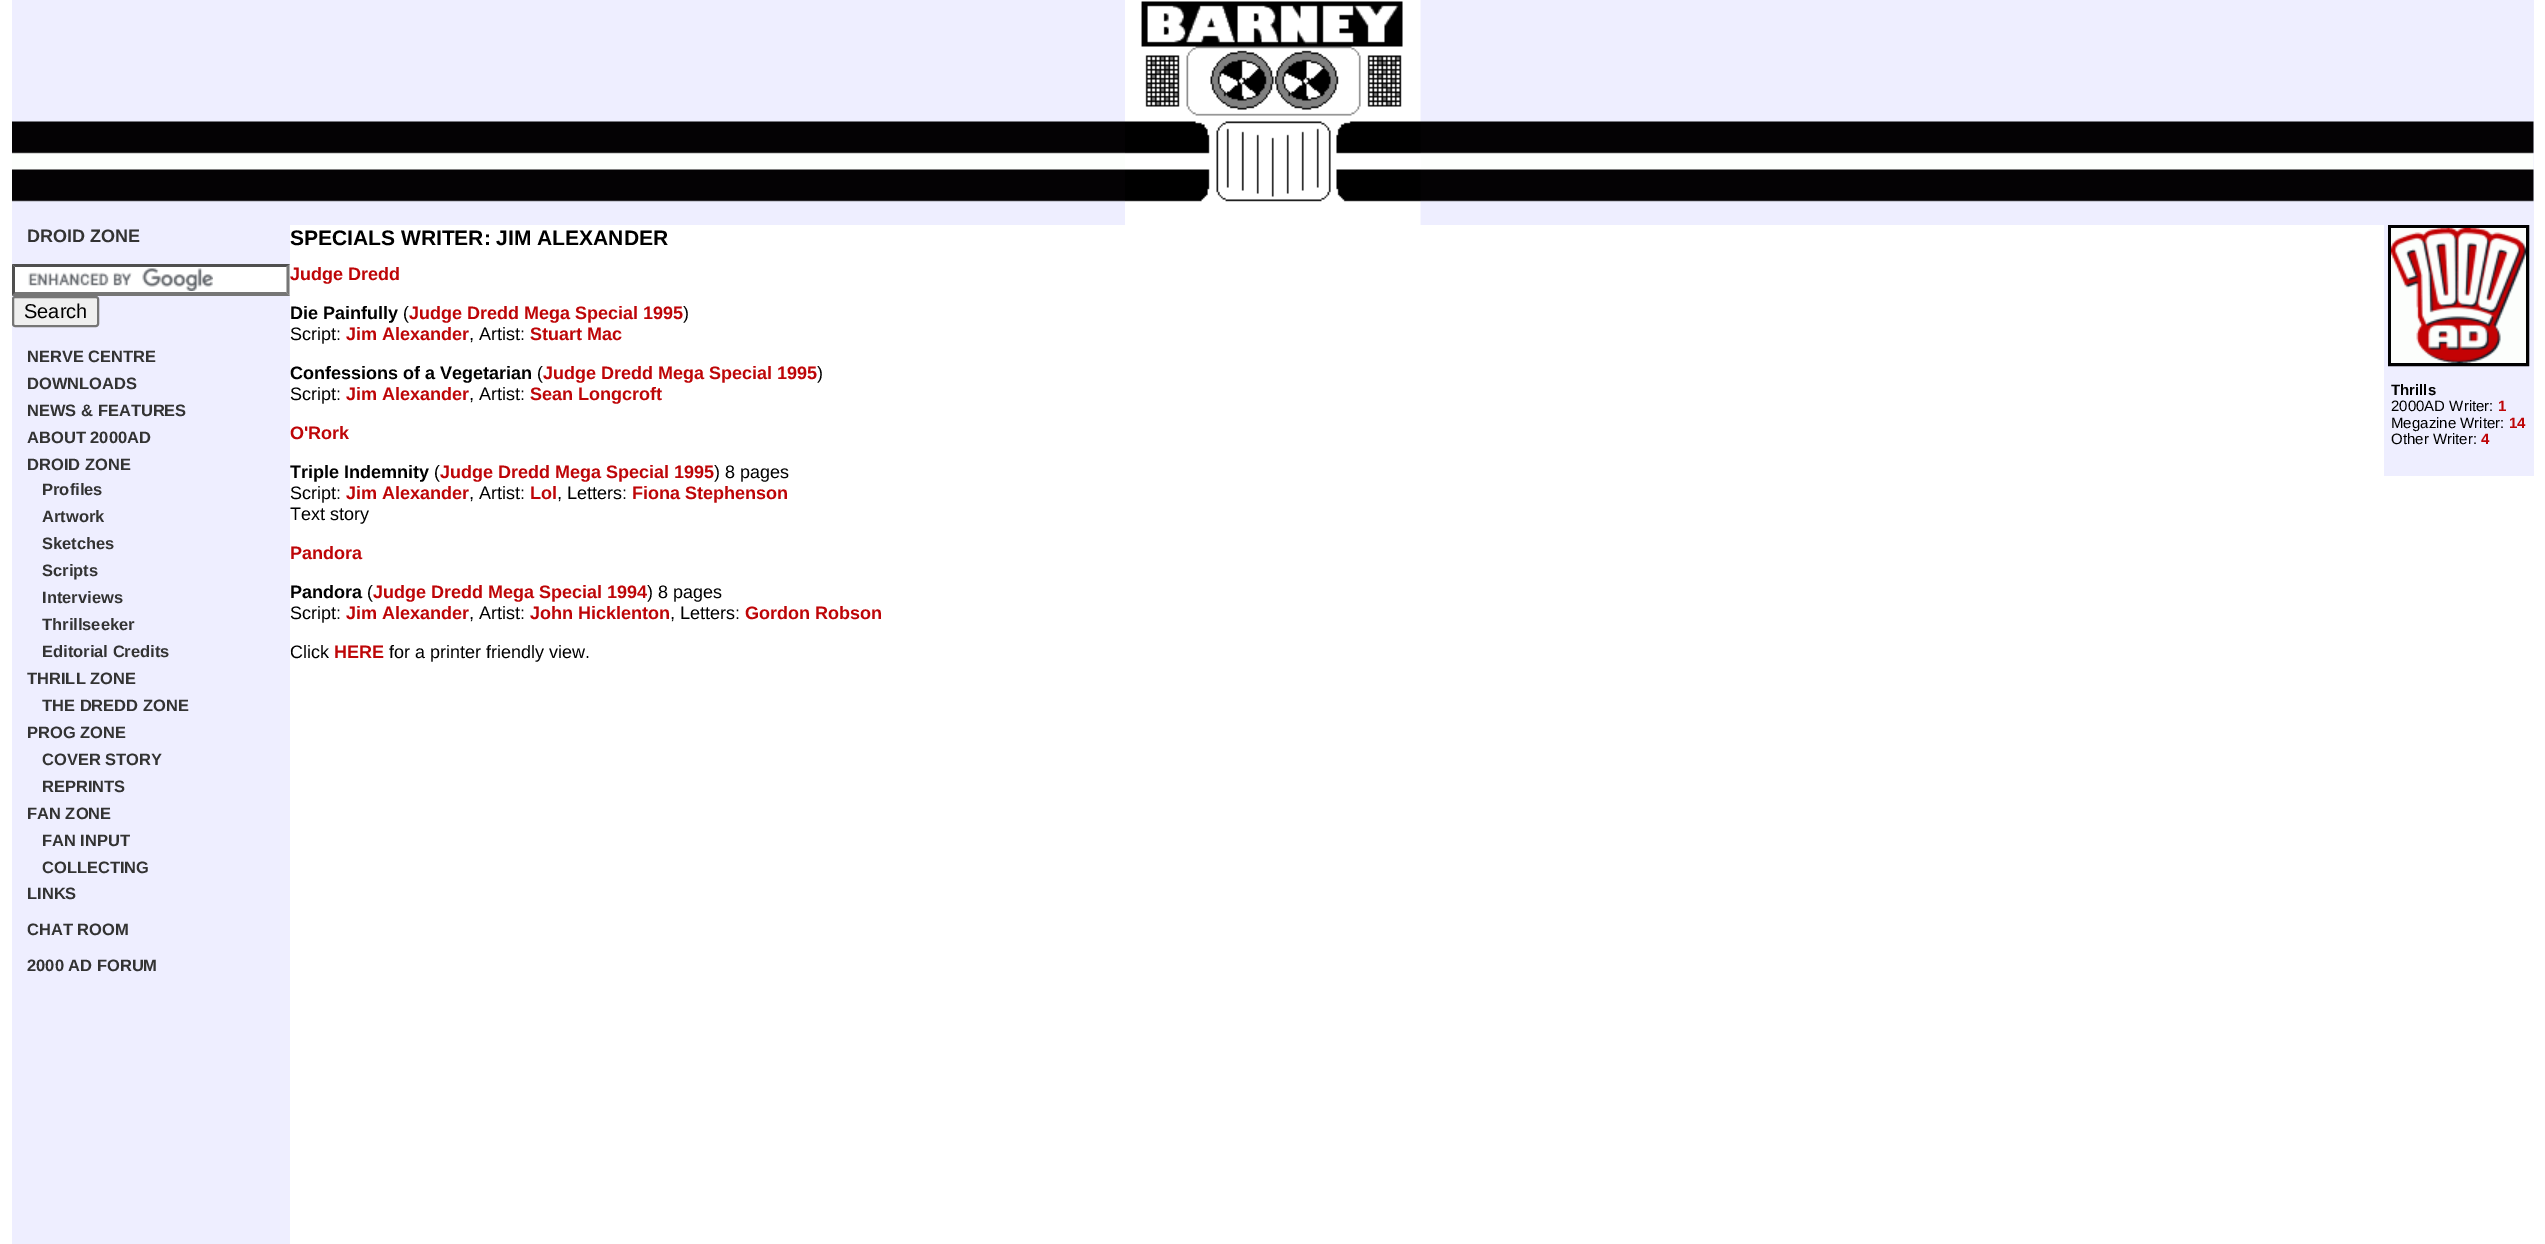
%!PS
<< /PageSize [2545 1244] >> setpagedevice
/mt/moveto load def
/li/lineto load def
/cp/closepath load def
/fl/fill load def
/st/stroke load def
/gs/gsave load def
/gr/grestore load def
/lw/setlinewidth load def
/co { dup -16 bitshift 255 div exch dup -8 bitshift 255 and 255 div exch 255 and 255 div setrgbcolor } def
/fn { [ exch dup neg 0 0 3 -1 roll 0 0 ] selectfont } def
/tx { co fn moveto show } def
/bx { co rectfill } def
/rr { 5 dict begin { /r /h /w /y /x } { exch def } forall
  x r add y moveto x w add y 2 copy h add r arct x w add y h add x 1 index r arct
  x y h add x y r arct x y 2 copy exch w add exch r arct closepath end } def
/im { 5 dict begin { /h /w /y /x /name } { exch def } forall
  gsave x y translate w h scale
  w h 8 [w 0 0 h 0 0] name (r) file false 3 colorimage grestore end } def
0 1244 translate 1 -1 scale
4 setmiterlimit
0 0 2545 1244 16#FFFFFF bx
12 0 2522 225 16#EEEEFF bx
(media/1.raw) 12 121 2522 81 im
(media/2.raw) 1125 0 296 225 im
12 225 278 1019 16#EEEEFF bx
12 264 278 32 16#FFFFFF bx
(media/3.raw) 28 268 185 23 im
16#4F4F4F co
12 264 mt 290 264 li 286 267 li 15 267 li cp fl
16#767676 co
289.5 264 mt 289.5 295.5 li 286.5 292.5 li 286.5 267 li cp fl
290 296 mt 12 296 li 15 292 li 286 292 li cp fl
16#4F4F4F co
12 295.5 mt 12 264 li 15 267 li 15 292.5 li cp fl
16#EFEFEF co
13 297 85 29 2 rr gs fl gr
16#767676 co
2 lw
st
2384 225 150 251 16#EEEEFF bx
16#000000 co
3 lw
2389.5 226.5 138 138 rectstroke
(media/4.raw) 2391 228 135 135 im
(DROID ZONE) 27 242 /LiberationSans-Bold 18 16#333333 tx
(Search) 24 318 /LiberationSans-Regular 20 16#000000 tx
(NERVE CENTRE) 27 362 /LiberationSans-Bold 16.5 16#333333 tx
(DOWNLOADS) 27 389 /LiberationSans-Bold 16.5 16#333333 tx
(NEWS & FEATURES) 27 416 /LiberationSans-Bold 16.5 16#333333 tx
(ABOUT 2000AD) 27 443 /LiberationSans-Bold 16.5 16#333333 tx
(DROID ZONE) 27 470 /LiberationSans-Bold 16.5 16#333333 tx
(Profiles) 42 495 /LiberationSans-Bold 16.5 16#333333 tx
(Artwork) 42 522 /LiberationSans-Bold 16.5 16#333333 tx
(Sketches) 42 549 /LiberationSans-Bold 16.5 16#333333 tx
(Scripts) 42 576 /LiberationSans-Bold 16.5 16#333333 tx
(Interviews) 42 603 /LiberationSans-Bold 16.5 16#333333 tx
(Thrillseeker) 42 630 /LiberationSans-Bold 16.5 16#333333 tx
(Editorial Credits) 42 657 /LiberationSans-Bold 16.5 16#333333 tx
(THRILL ZONE) 27 684 /LiberationSans-Bold 16.5 16#333333 tx
(THE DREDD ZONE) 42 711 /LiberationSans-Bold 16.5 16#333333 tx
(PROG ZONE) 27 738 /LiberationSans-Bold 16.5 16#333333 tx
(COVER STORY) 42 765 /LiberationSans-Bold 16.5 16#333333 tx
(REPRINTS) 42 792 /LiberationSans-Bold 16.5 16#333333 tx
(FAN ZONE) 27 819 /LiberationSans-Bold 16.5 16#333333 tx
(FAN INPUT) 42 846 /LiberationSans-Bold 16.5 16#333333 tx
(COLLECTING) 42 873 /LiberationSans-Bold 16.5 16#333333 tx
(LINKS) 27 899 /LiberationSans-Bold 16.5 16#333333 tx
(CHAT ROOM) 27 935 /LiberationSans-Bold 16.5 16#333333 tx
(2000 AD FORUM) 27 971 /LiberationSans-Bold 16.5 16#333333 tx
(SPECIALS WRITER: JIM ALEXANDER) 290 245 /LiberationSans-Bold 21 16#000000 tx
(Judge Dredd) 290 280 /LiberationSans-Bold 18 16#BE0507 tx
(Die Painfully) 290 319 /LiberationSans-Bold 18 16#000000 tx
(\() 403 319 /LiberationSans-Regular 18 16#000000 tx
(Judge Dredd Mega Special 1995) 409 319 /LiberationSans-Bold 18 16#BE0507 tx
(\)) 683 319 /LiberationSans-Regular 18 16#000000 tx
(Script:) 290 340 /LiberationSans-Regular 18 16#000000 tx
(Jim Alexander) 346 340 /LiberationSans-Bold 18 16#BE0507 tx
(, Artist:) 469 340 /LiberationSans-Regular 18 16#000000 tx
(Stuart Mac) 530 340 /LiberationSans-Bold 18 16#BE0507 tx
(Confessions of a Vegetarian) 290 379 /LiberationSans-Bold 18 16#000000 tx
(\() 537 379 /LiberationSans-Regular 18 16#000000 tx
(Judge Dredd Mega Special 1995) 543 379 /LiberationSans-Bold 18 16#BE0507 tx
(\)) 817 379 /LiberationSans-Regular 18 16#000000 tx
(Script:) 290 400 /LiberationSans-Regular 18 16#000000 tx
(Jim Alexander) 346 400 /LiberationSans-Bold 18 16#BE0507 tx
(, Artist:) 469 400 /LiberationSans-Regular 18 16#000000 tx
(Sean Longcroft) 530 400 /LiberationSans-Bold 18 16#BE0507 tx
(Thrills) 2391 395 /LiberationSans-Bold 15 16#000000 tx
(2000AD Writer:) 2391 411 /LiberationSans-Regular 15 16#000000 tx
(1) 2498 411 /LiberationSans-Bold 15 16#BE0507 tx
(Megazine Writer:) 2391 428 /LiberationSans-Regular 15 16#000000 tx
(14) 2509 428 /LiberationSans-Bold 15 16#BE0507 tx
(Other Writer:) 2391 444 /LiberationSans-Regular 15 16#000000 tx
(4) 2481 444 /LiberationSans-Bold 15 16#BE0507 tx
(O'Rork) 290 439 /LiberationSans-Bold 18 16#BE0507 tx
(Triple Indemnity) 290 478 /LiberationSans-Bold 18 16#000000 tx
(\() 434 478 /LiberationSans-Regular 18 16#000000 tx
(Judge Dredd Mega Special 1995) 440 478 /LiberationSans-Bold 18 16#BE0507 tx
(\) 8 pages) 714 478 /LiberationSans-Regular 18 16#000000 tx
(Script:) 290 499 /LiberationSans-Regular 18 16#000000 tx
(Jim Alexander) 346 499 /LiberationSans-Bold 18 16#BE0507 tx
(, Artist:) 469 499 /LiberationSans-Regular 18 16#000000 tx
(Lol) 530 499 /LiberationSans-Bold 18 16#BE0507 tx
(, Letters:) 557 499 /LiberationSans-Regular 18 16#000000 tx
(Fiona Stephenson) 632 499 /LiberationSans-Bold 18 16#BE0507 tx
(Text story) 290 520 /LiberationSans-Regular 18 16#000000 tx
(Pandora) 290 559 /LiberationSans-Bold 18 16#BE0507 tx
(Pandora) 290 598 /LiberationSans-Bold 18 16#000000 tx
(\() 367 598 /LiberationSans-Regular 18 16#000000 tx
(Judge Dredd Mega Special 1994) 373 598 /LiberationSans-Bold 18 16#BE0507 tx
(\) 8 pages) 647 598 /LiberationSans-Regular 18 16#000000 tx
(Script:) 290 619 /LiberationSans-Regular 18 16#000000 tx
(Jim Alexander) 346 619 /LiberationSans-Bold 18 16#BE0507 tx
(, Artist:) 469 619 /LiberationSans-Regular 18 16#000000 tx
(John Hicklenton) 530 619 /LiberationSans-Bold 18 16#BE0507 tx
(, Letters:) 670 619 /LiberationSans-Regular 18 16#000000 tx
(Gordon Robson) 745 619 /LiberationSans-Bold 18 16#BE0507 tx
(Click) 290 658 /LiberationSans-Regular 18 16#000000 tx
(HERE) 334 658 /LiberationSans-Bold 18 16#BE0507 tx
(for a printer friendly view.) 389 658 /LiberationSans-Regular 18 16#000000 tx
showpage
